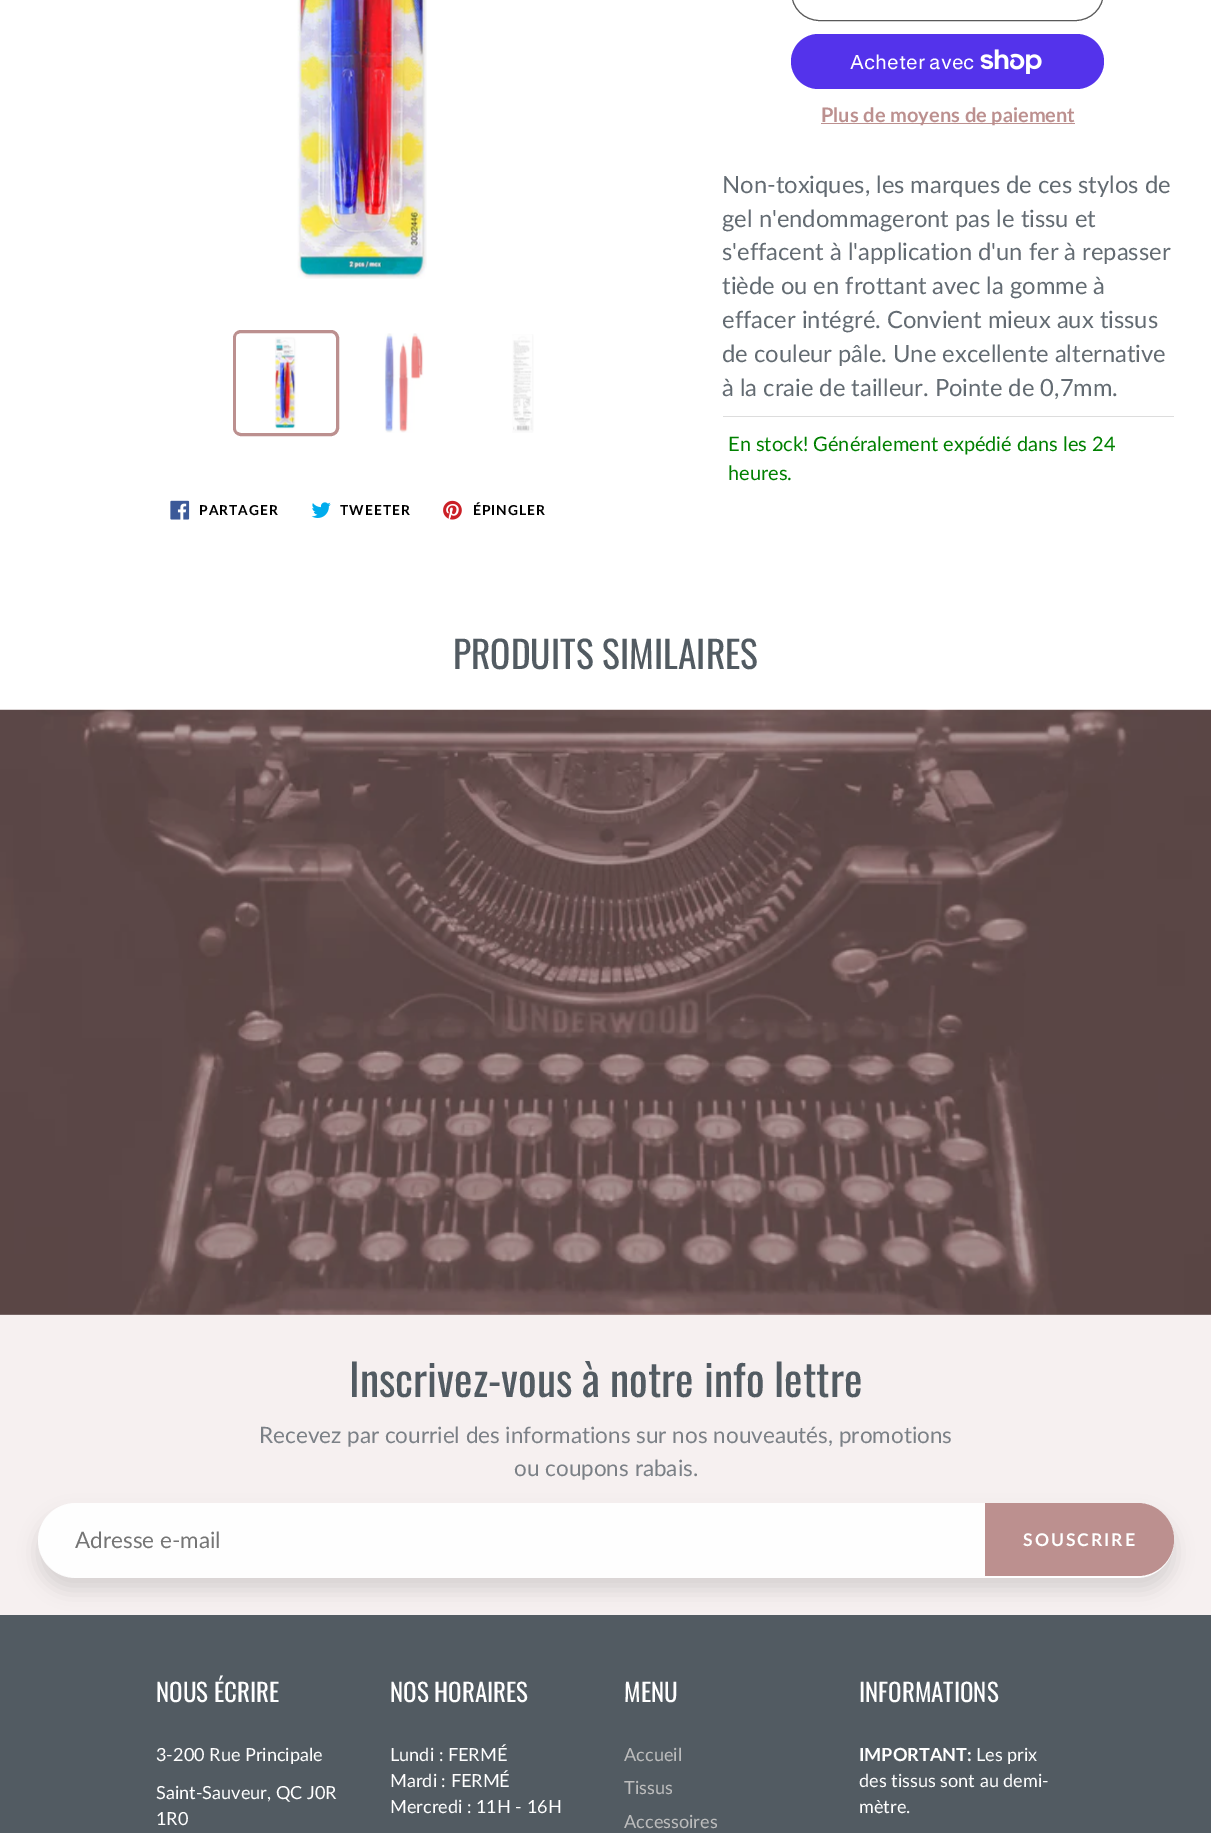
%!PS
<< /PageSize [1211 1833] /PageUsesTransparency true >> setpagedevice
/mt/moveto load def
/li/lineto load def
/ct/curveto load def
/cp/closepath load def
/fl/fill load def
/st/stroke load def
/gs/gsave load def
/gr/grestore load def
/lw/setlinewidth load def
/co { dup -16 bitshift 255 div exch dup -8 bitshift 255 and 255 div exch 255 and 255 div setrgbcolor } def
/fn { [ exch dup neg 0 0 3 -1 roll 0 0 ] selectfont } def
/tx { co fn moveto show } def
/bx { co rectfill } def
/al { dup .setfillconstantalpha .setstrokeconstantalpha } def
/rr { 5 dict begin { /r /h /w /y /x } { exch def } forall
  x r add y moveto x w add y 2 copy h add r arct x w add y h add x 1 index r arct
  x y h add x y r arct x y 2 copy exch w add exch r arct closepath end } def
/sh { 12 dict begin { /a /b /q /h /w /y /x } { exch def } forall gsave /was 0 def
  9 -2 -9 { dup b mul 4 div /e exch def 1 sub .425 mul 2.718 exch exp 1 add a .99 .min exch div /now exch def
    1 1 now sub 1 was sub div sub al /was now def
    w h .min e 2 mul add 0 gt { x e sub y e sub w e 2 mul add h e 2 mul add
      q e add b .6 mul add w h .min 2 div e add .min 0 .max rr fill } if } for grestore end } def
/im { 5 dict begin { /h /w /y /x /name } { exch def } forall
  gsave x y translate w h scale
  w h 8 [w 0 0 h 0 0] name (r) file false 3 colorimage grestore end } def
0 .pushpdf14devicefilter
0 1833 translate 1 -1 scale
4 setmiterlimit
0 0 1211 1833 16#FFFFFF bx
16#595959 co
791.5 -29.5 312 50 28 rr st
16#5433EB co
791 34 313 55 27.5 rr fl
(media/1.raw) 980 49 62 25 im
821 123 254 1 16#BC908F bx
723 416 451 1 16#DDDDDD bx
(media/2.raw) 297 0 130 279 im
16#BC908F co
3 lw
234.5 331.5 103 103 6.5 rr st
(media/3.raw) 236 334 63 98 im
(media/4.raw) 384 333 40 100 im
(media/5.raw) 512 334 22 99 im
(media/6.raw) 170 500 20 20 im
(media/7.raw) 311 502 20 16 im
(media/8.raw) 443 500 19 20 im
0 1314 1211 301 16#F6F0F0 bx
(media/9.raw) 0 709 1211 606 im
0 1615 1211 218 16#525B62 bx
gs
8 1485 mt 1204 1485 li 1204 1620 li 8 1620 li cp 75.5 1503 mt 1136.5 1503 li 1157 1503 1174 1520 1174 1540.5 ct 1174 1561 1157 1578 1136.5 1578 ct 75.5 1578 li 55 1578 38 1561 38 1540.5 ct 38 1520 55 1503 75.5 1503 ct cp eoclip newpath
16#000000 co
38 1515 1136 75 37.5 9.5 .12 sh
gr
0.9 al
16#FFFFFF co
38 1503 1136 75 37.5 rr fl
1 al
16#BC908F co
985 1503 mt 1137.5 1503 li 1157.5 1503 1174 1519.5 1174 1539.5 ct 1174 1559.5 1157.5 1576 1137.5 1576 ct 985 1576 li cp fl
(Acheter avec) 850 69 /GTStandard-Regular 20 16#FFFFFF tx
(Plus de moyens de paiement) 821 122 /Lato-Bold 20 16#BC908F tx
(Non-toxiques, les marques de ces stylos de) 722 193 /Lato-Regular 23.75 16#636B72 tx
(gel n'endommageront pas le tissu et) 722 227 /Lato-Regular 23.75 16#636B72 tx
(s'effacent à l'application d'un fer à repasser) 722 260 /Lato-Regular 23.75 16#636B72 tx
(tiède ou en frottant avec la gomme à) 722 294 /Lato-Regular 23.75 16#636B72 tx
(effacer intégré. Convient mieux aux tissus) 722 328 /Lato-Regular 23.75 16#636B72 tx
(de couleur pâle. Une excellente alternative) 722 362 /Lato-Regular 23.75 16#636B72 tx
(à la craie de tailleur. Pointe de 0,7mm.) 722 396 /Lato-Regular 23.75 16#636B72 tx
(En stock! Généralement expédié dans les 24) 728 451 /Lato-Regular 20 16#008000 tx
(heures.) 728 480 /Lato-Regular 20 16#008000 tx
/Lato-Bold 13.75 fn
16#000000 co
199 515 mt 1 0 (PARTAGER) ashow
340 515 mt 1 0 (TWEETER) ashow
473 515 mt 1 0 (ÉPINGLER) ashow
(PRODUITS SIMILAIRES) 453 669 /Oswald-Regular 37.5 16#525B62 tx
(Inscrivez-vous à notre info lettre) 349 1397 /Oswald-Regular 43.75 16#525B62 tx
(Recevez par courriel des informations sur nos nouveautés, promotions) 259 1443 /Lato-Regular 22.5 16#7B8086 tx
(ou coupons rabais.) 514 1476 /Lato-Regular 22.5 16#7B8086 tx
(Adresse e-mail) 75 1548 /Lato-Regular 22.5 16#757575 tx
/Lato-Bold 17.5 fn
16#FFFFFF co
1023 1546 mt 2 0 (SOUSCRIRE) ashow
(NOUS ÉCRIRE) 156 1702 /Oswald-Regular 25 16#FFFFFF tx
(3-200 Rue Principale) 156 1761 /Lato-Regular 18.1 16#FFFFFF tx
(Saint-Sauveur, QC J0R) 156 1799 /Lato-Regular 18.1 16#FFFFFF tx
(1R0) 156 1825 /Lato-Regular 18.1 16#FFFFFF tx
(NOS HORAIRES) 390 1702 /Oswald-Regular 25 16#FFFFFF tx
(Lundi : FERMÉ) 390 1761 /Lato-Regular 18.1 16#FFFFFF tx
(Mardi : FERMÉ) 390 1787 /Lato-Regular 18.1 16#FFFFFF tx
(Mercredi : 11H - 16H) 390 1813 /Lato-Regular 18.1 16#FFFFFF tx
(MENU) 624 1702 /Oswald-Regular 25 16#FFFFFF tx
(Accueil) 624 1761 /Lato-Regular 18.1 16#BDBDBD tx
(Tissus) 624 1794 /Lato-Regular 18.1 16#BDBDBD tx
(Accessoires) 624 1828 /Lato-Regular 18.1 16#BDBDBD tx
(INFORMATIONS) 859 1702 /Oswald-Regular 25 16#FFFFFF tx
(IMPORTANT:) 859 1761 /Lato-Bold 18.1 16#FFFFFF tx
(Les prix) 976 1761 /Lato-Regular 18.1 16#FFFFFF tx
(des tissus sont au demi-) 859 1787 /Lato-Regular 18.1 16#FFFFFF tx
(mètre.) 859 1813 /Lato-Regular 18.1 16#FFFFFF tx
.poppdf14devicefilter showpage
